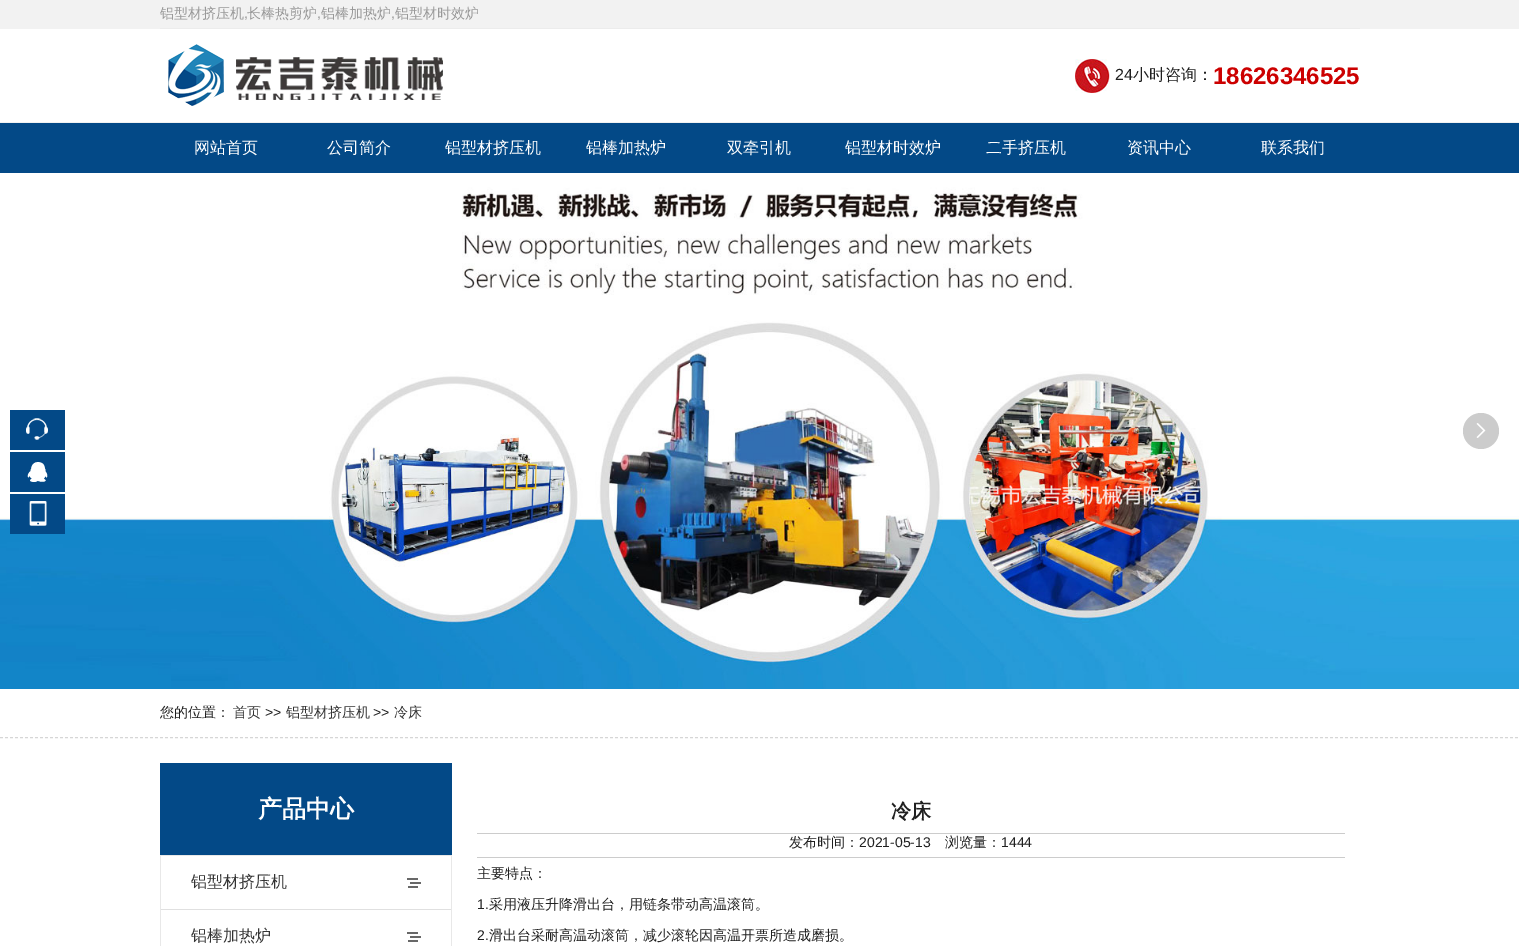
%!PS
<< /PageSize [1519 946] >> setpagedevice
/mt/moveto load def
/li/lineto load def
/cp/closepath load def
/fl/fill load def
/st/stroke load def
/co { dup -16 bitshift 255 div exch dup -8 bitshift 255 and 255 div exch 255 and 255 div setrgbcolor } def
/fn { [ exch dup neg 0 0 3 -1 roll 0 0 ] selectfont } def
/tx { co fn moveto show } def
/bx { co rectfill } def
/ci { newpath 0 360 arc closepath } def
/im { 5 dict begin { /h /w /y /x /name } { exch def } forall
  gsave x y translate w h scale
  w h 8 [w 0 0 h 0 0] name (r) file false 3 colorimage grestore end } def
0 946 translate 1 -1 scale
4 setmiterlimit
0 0 1519 946 16#FFFFFF bx
0 0 1519 29 16#F2F2F2 bx
160 28 1200 1 16#ECECEC bx
(media/1.raw) 168 44 275 62 im
(media/2.raw) 1075 59 35 34 im
0 123 1519 50 16#034987 bx
0 122 1519 1 16#F2F2F2 bx
(media/3.raw) 0 173 1519 516 im
16#CCCCCC co
1481 431 18 ci fl
(media/4.raw) 1476 423 10 15 im
10 410 55 40 16#034987 bx
(media/5.raw) 26 418 22 22 im
10 452 55 40 16#034987 bx
(media/6.raw) 27 462 21 20 im
10 494 55 40 16#034987 bx
(media/7.raw) 29 501 18 25 im
16#D6D6D6 co
[3 2] 0 setdash
0 737.5 mt 1519 737.5 li st
160 763 292 92 16#034987 bx
160 855 292 1 16#E8E8E8 bx
452 855 mt 452 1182 li 451 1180 li 451 856 li cp fl
160 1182 mt 160 855 li 161 856 li 161 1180 li cp fl
161 909 290 1 16#E0E0E0 bx
(media/8.raw) 407 878 14 10 im
(media/8.raw) 407 932 14 10 im
477 833 868 1 16#CCCCCC bx
477 857 868 1 16#CCCCCC bx
(铝型材挤压机) 160 18 /WenQuanYiZenHei-Medium 14 16#999999 tx
(,) 244 18 /LiberationSans-Regular 14 16#999999 tx
(长棒热剪炉) 247 18 /WenQuanYiZenHei-Medium 14 16#999999 tx
(,) 317 18 /LiberationSans-Regular 14 16#999999 tx
(铝棒加热炉) 321 18 /WenQuanYiZenHei-Medium 14 16#999999 tx
(,) 391 18 /LiberationSans-Regular 14 16#999999 tx
(铝型材时效炉) 395 18 /WenQuanYiZenHei-Medium 14 16#999999 tx
(24) 1115 80 /LiberationSans-Regular 16 16#202020 tx
(小时咨询：) 1133 80 /WenQuanYiZenHei-Medium 16 16#202020 tx
(18626346525) 1213 84 /LiberationSans-Bold 24 16#CC0000 tx
(网站首页) 194 153 /WenQuanYiZenHei-Medium 16 16#FFFFFF tx
(公司简介) 327 153 /WenQuanYiZenHei-Medium 16 16#FFFFFF tx
(铝型材挤压机) 445 153 /WenQuanYiZenHei-Medium 16 16#FFFFFF tx
(铝棒加热炉) 586 153 /WenQuanYiZenHei-Medium 16 16#FFFFFF tx
(双牵引机) 727 153 /WenQuanYiZenHei-Medium 16 16#FFFFFF tx
(铝型材时效炉) 845 153 /WenQuanYiZenHei-Medium 16 16#FFFFFF tx
(二手挤压机) 986 153 /WenQuanYiZenHei-Medium 16 16#FFFFFF tx
(资讯中心) 1127 153 /WenQuanYiZenHei-Medium 16 16#FFFFFF tx
(联系我们) 1261 153 /WenQuanYiZenHei-Medium 16 16#FFFFFF tx
(您的位置：) 160 717 /WenQuanYiZenHei-Medium 14 16#202020 tx
(首页) 233 717 /WenQuanYiZenHei-Medium 14 16#333333 tx
(>>) 265 717 /LiberationSans-Regular 14 16#202020 tx
(铝型材挤压机) 286 717 /WenQuanYiZenHei-Medium 14 16#333333 tx
(>>) 373 717 /LiberationSans-Regular 14 16#202020 tx
(冷床) 394 717 /WenQuanYiZenHei-Medium 14 16#333333 tx
(产品中心) 258 817 /WenQuanYiZenHei-Bold 24 16#FFFFFF tx
(铝型材挤压机) 191 887 /WenQuanYiZenHei-Medium 16 16#333333 tx
(铝棒加热炉) 191 941 /WenQuanYiZenHei-Medium 16 16#333333 tx
(冷床) 891 818 /WenQuanYiZenHei-Bold 20 16#202020 tx
(发布时间：) 789 847 /WenQuanYiZenHei-Medium 14 16#202020 tx
(2021-05-13) 859 847 /LiberationSans-Regular 14 16#202020 tx
(浏览量：) 945 847 /WenQuanYiZenHei-Medium 14 16#202020 tx
(1444) 1001 847 /LiberationSans-Regular 14 16#202020 tx
(主要特点：) 477 878 /WenQuanYiZenHei-Medium 14 16#202020 tx
(1.) 477 909 /LiberationSans-Regular 14 16#202020 tx
(采用液压升降滑出台，用链条带动高温滚筒。) 489 909 /WenQuanYiZenHei-Medium 14 16#202020 tx
(2.) 477 940 /LiberationSans-Regular 14 16#202020 tx
(滑出台采耐高温动滚筒，减少滚轮因高温开票所造成磨损。) 489 940 /WenQuanYiZenHei-Medium 14 16#202020 tx
showpage
